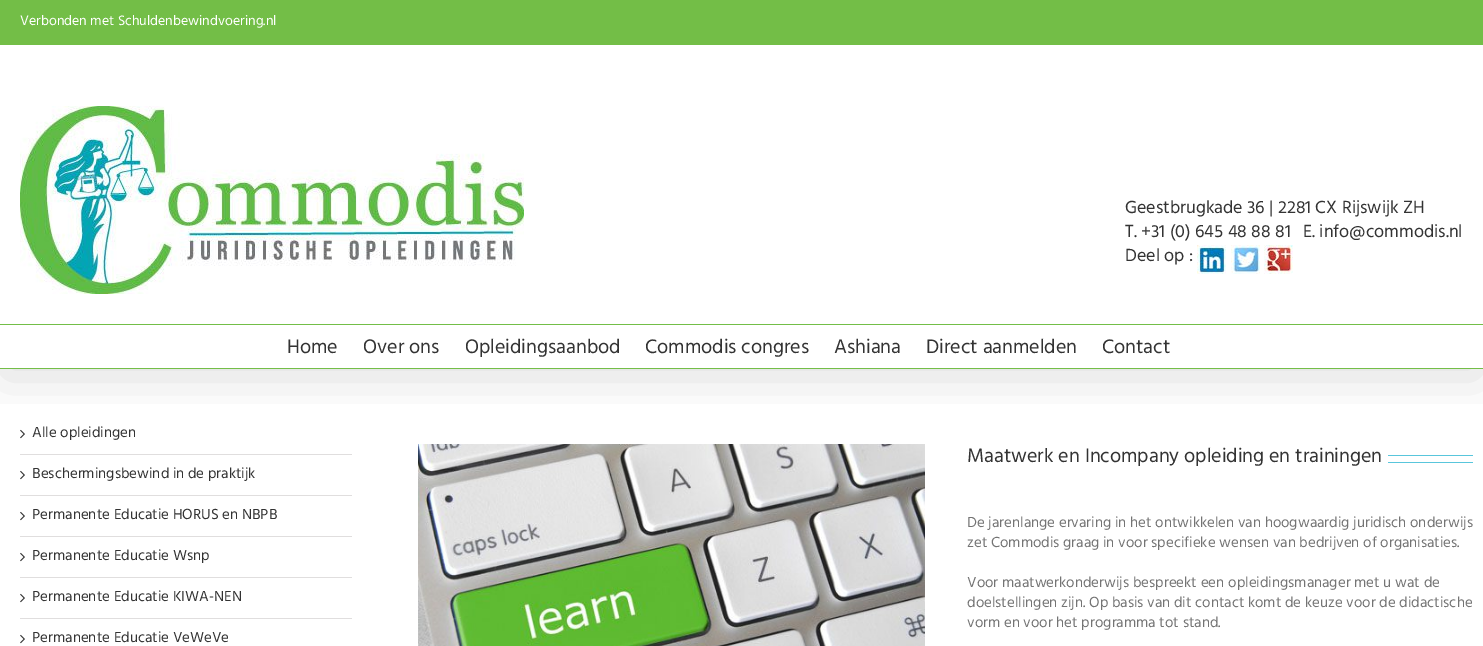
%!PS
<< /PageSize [1483 646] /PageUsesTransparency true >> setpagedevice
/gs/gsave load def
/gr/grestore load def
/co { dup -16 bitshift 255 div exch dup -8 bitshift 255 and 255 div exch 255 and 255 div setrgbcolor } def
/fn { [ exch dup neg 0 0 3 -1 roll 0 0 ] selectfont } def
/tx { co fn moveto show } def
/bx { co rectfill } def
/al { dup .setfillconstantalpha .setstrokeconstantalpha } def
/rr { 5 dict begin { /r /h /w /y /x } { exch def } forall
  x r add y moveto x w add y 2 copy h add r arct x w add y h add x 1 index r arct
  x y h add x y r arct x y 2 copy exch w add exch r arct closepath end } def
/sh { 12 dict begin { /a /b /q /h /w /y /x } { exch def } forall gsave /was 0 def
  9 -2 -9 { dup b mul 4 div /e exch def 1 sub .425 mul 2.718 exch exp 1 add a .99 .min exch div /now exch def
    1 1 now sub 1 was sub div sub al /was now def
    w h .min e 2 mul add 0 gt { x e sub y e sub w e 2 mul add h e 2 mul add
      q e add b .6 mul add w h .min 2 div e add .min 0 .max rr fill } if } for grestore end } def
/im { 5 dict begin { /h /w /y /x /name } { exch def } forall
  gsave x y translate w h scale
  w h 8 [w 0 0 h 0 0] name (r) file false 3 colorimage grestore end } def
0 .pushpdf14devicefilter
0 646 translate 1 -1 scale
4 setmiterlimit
0 0 1483 646 16#FFFFFF bx
(media/5.raw) 20 429 5 10 im
(media/6.raw) 418 444 507 202 im
gs
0 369 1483 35 rectclip
16#000000 co
2 12 1479 365 0 25 .14 sh
gr
0 0 1483 45 16#73BE47 bx
0 324 1483 1 16#73BE47 bx
(media/1.raw) 20 106 504 188 im
(media/2.raw) 1197 245 29 29 im
(media/3.raw) 1231 245 29 29 im
(media/4.raw) 1264 245 29 29 im
0 368 1483 1 16#73BE47 bx
20 454 332 1 16#E0DEDE bx
20 495 332 1 16#E0DEDE bx
(media/5.raw) 20 470 5 10 im
20 536 332 1 16#E0DEDE bx
(media/5.raw) 20 511 5 10 im
20 577 332 1 16#E0DEDE bx
(media/5.raw) 20 552 5 10 im
20 618 332 1 16#E0DEDE bx
(media/5.raw) 20 593 5 10 im
(media/5.raw) 20 634 5 10 im
1388 455 85 1 16#59C6DC bx
1388 462 85 1 16#59C6DC bx
(Verbonden met Schuldenbewindvoering.nl) 20 25 /Hind-Regular 14 16#FFFFFF tx
(Geestbrugkade 36 | 2281 CX Rijswijk ZH) 1125 213 /Hind-Regular 18 16#333333 tx
(T. +31 \(0\) 645 48 88 81) 1125 237 /Hind-Regular 18 16#333333 tx
(E. info@commodis.nl) 1303 237 /Hind-Regular 18 16#333333 tx
(Deel op :) 1125 261 /Hind-Regular 18 16#333333 tx
(Home) 287 353 /Hind-Regular 20 16#333333 tx
(Over ons) 363 353 /Hind-Regular 20 16#333333 tx
(Opleidingsaanbod) 465 353 /Hind-Regular 20 16#333333 tx
(Commodis congres) 645 353 /Hind-Regular 20 16#333333 tx
(Ashiana) 834 353 /Hind-Regular 20 16#333333 tx
(Direct aanmelden) 926 353 /Hind-Regular 20 16#333333 tx
(Contact) 1102 353 /Hind-Regular 20 16#333333 tx
(Alle opleidingen) 32 437 /Hind-Regular 15 16#333333 tx
(Beschermingsbewind in de praktijk) 32 478 /Hind-Regular 15 16#333333 tx
(Permanente Educatie HORUS en NBPB) 32 519 /Hind-Regular 15 16#333333 tx
(Permanente Educatie Wsnp) 32 560 /Hind-Regular 15 16#333333 tx
(Permanente Educatie KIWA-NEN) 32 601 /Hind-Regular 15 16#333333 tx
(Permanente Educatie VeWeVe) 32 642 /Hind-Regular 15 16#333333 tx
(Maatwerk en Incompany opleiding en trainingen) 967 462 /Hind-Regular 20 16#333333 tx
(De jarenlange ervaring in het ontwikkelen van hoogwaardig juridisch onderwijs) 967 527 /Hind-Regular 15 16#747474 tx
(zet Commodis graag in voor specifieke wensen van bedrijven of organisaties.) 967 547 /Hind-Regular 15 16#747474 tx
(Voor maatwerkonderwijs bespreekt een opleidingsmanager met u wat de) 967 587 /Hind-Regular 15 16#747474 tx
(doelstellingen zijn. Op basis van dit contact komt de keuze voor de didactische) 967 607 /Hind-Regular 15 16#747474 tx
(vorm en voor het programma tot stand.) 967 627 /Hind-Regular 15 16#747474 tx
.poppdf14devicefilter showpage
